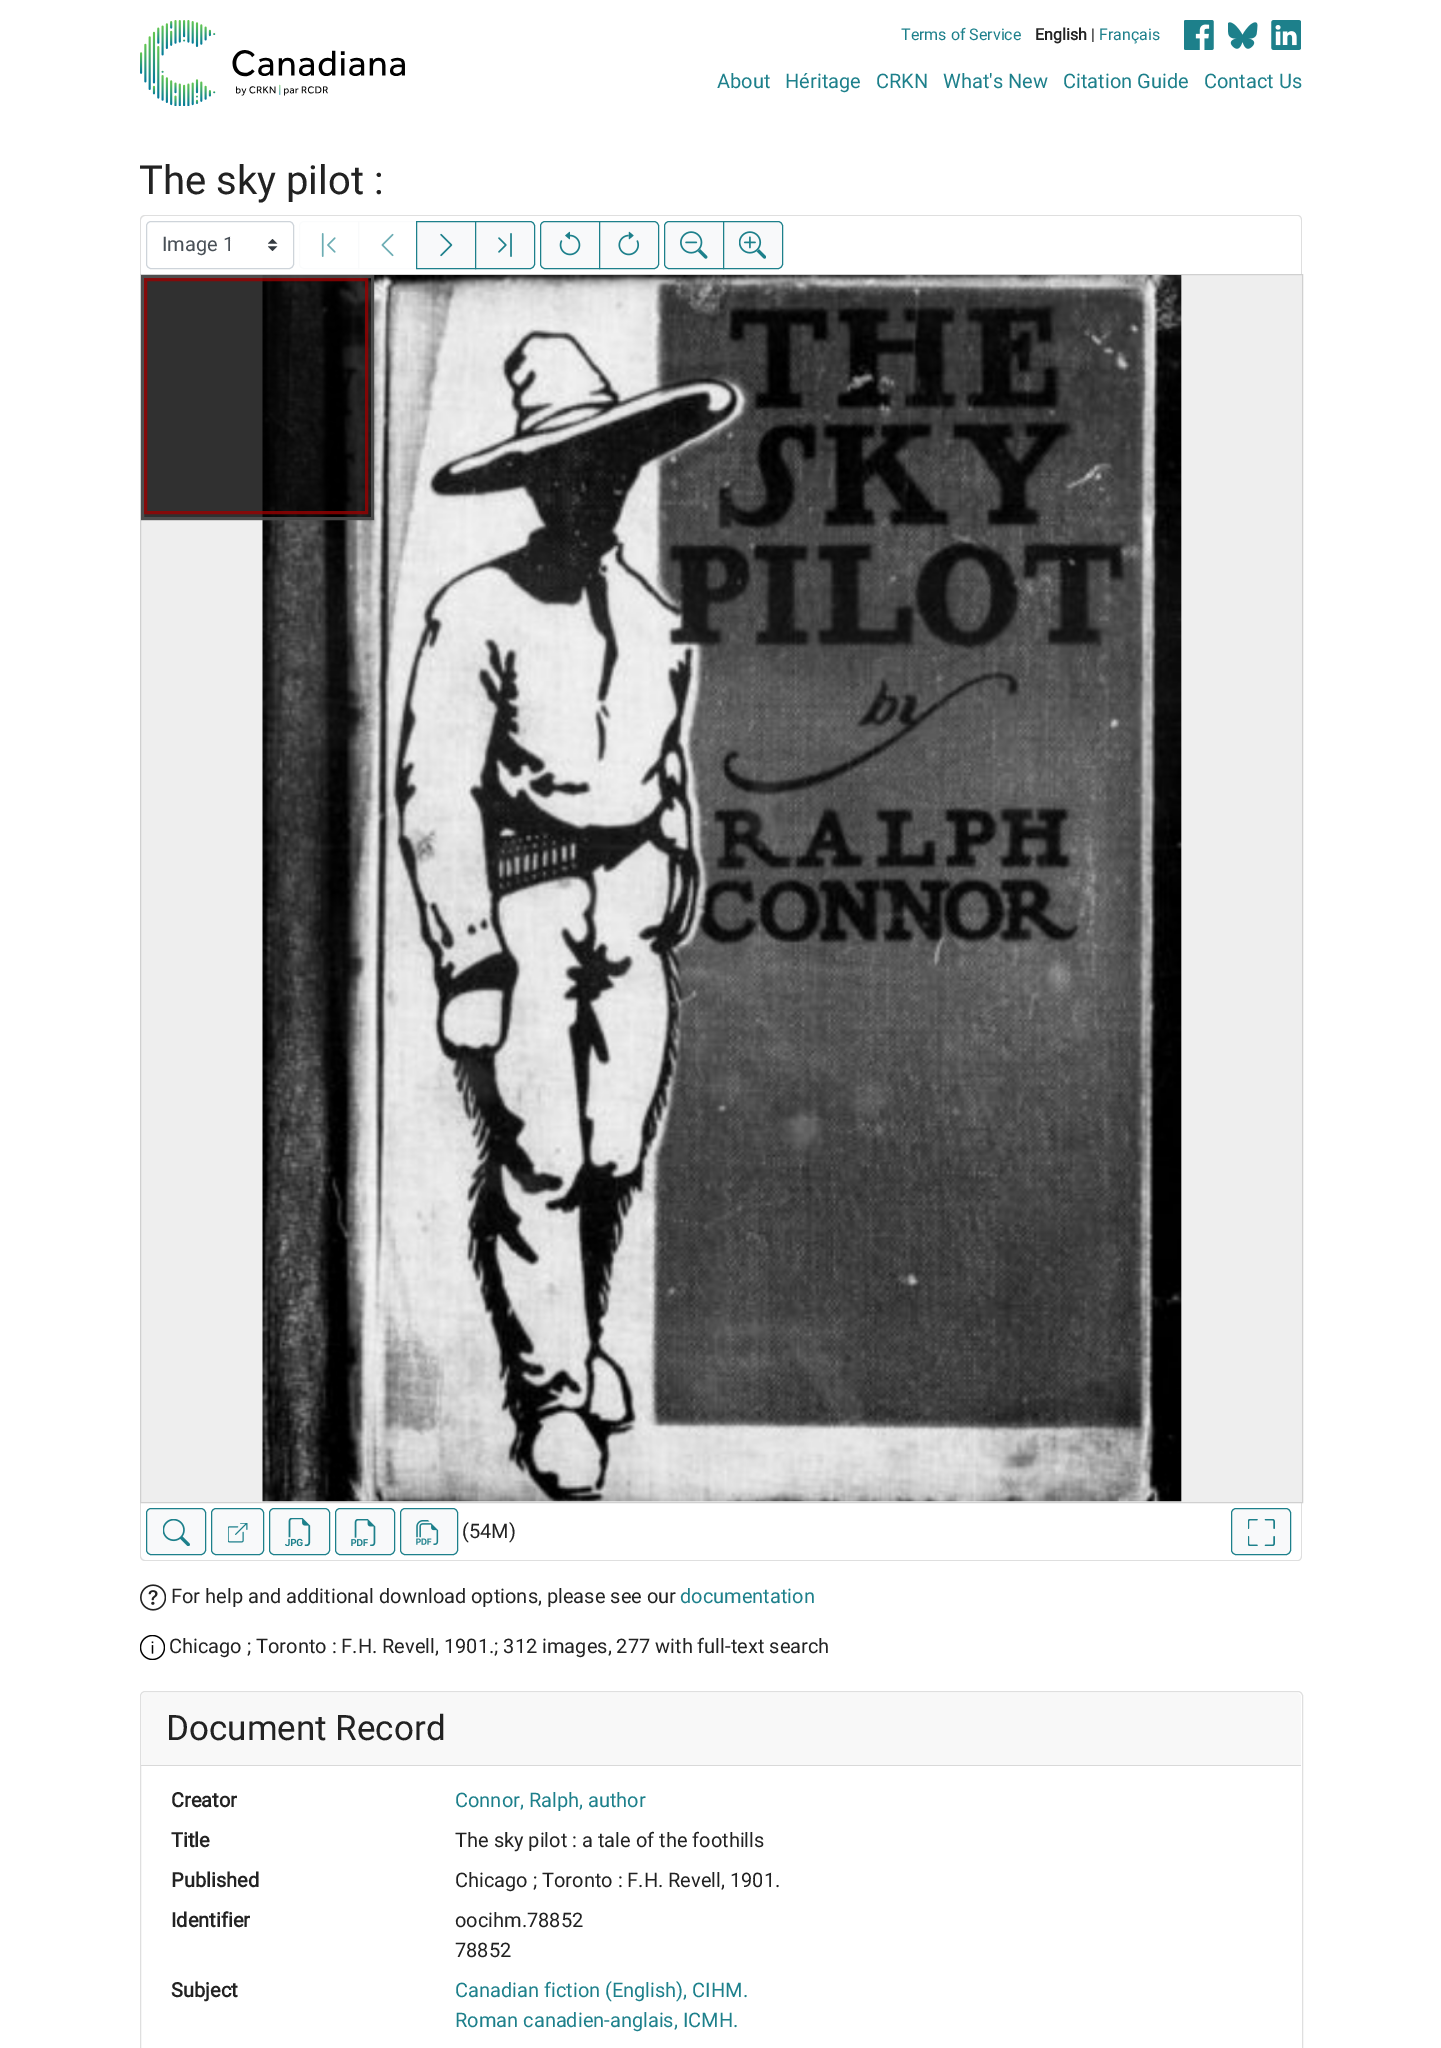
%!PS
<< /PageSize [1441 2048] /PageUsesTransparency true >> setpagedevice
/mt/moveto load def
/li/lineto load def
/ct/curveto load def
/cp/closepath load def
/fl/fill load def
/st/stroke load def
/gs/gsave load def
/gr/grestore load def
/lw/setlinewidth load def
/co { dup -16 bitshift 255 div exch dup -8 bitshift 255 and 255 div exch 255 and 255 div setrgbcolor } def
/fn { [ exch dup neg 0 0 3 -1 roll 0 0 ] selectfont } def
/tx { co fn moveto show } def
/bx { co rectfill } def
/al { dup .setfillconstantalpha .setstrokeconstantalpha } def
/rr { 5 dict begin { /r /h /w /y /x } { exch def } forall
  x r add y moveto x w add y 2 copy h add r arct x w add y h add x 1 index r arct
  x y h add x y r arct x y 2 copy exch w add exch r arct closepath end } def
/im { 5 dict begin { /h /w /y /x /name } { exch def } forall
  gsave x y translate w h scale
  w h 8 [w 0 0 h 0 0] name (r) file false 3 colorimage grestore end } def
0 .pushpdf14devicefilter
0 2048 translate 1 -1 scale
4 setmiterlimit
0 0 1441 2048 16#FFFFFF bx
(media/1.raw) 140 20 265 86 im
(media/2.raw) 1184 20 30 30 im
(media/3.raw) 1228 22 30 27 im
(media/4.raw) 1271 20 30 30 im
16#DFDFDF co
145 215 mt 1298 215 li 1300 215 1302 217 1302 220 ct 1302 274 li 140 274 li 140 220 li 140 217 142 215 145 215 ct cp 145 216 mt 1298 216 li 1300 216 1301 218 1301 220 ct 1301 274 li 141 274 li 141 220 li 141 218 143 216 145 216 ct cp eofill
(media/5.raw) 268 239 10 12 im
16#CED4DA co
146.5 221.5 147 47 4.5 rr st
16#FAFBFC co
304 221.5 mt 358.5 221.5 li 358.5 268.5 li 304 268.5 li 301.5 268.5 299.5 266.5 299.5 264 ct 299.5 226 li 299.5 223.5 301.5 221.5 304 221.5 ct cp st
(media/6.raw) 321 233 15 24 im
0.65 al
16#F8F9FA co
358.5 221.5 59 47 rectstroke
1 al
(media/7.raw) 381 233 13 24 im
418 222 57 46 16#F8F9FA bx
16#1D808B co
416.5 221.5 59 47 rectstroke
(media/8.raw) 440 233 13 24 im
16#F8F9FA co
475.5 221.5 mt 530 221.5 li 532.5 221.5 534.5 223.5 534.5 226 ct 534.5 264 li 534.5 266.5 532.5 268.5 530 268.5 ct 475.5 268.5 li cp gs fl gr
16#1D808B co
st
(media/9.raw) 498 233 14 24 im
16#F8F9FA co
545 221.5 mt 599.5 221.5 li 599.5 268.5 li 545 268.5 li 542.5 268.5 540.5 266.5 540.5 264 ct 540.5 226 li 540.5 223.5 542.5 221.5 545 221.5 ct cp gs fl gr
16#1D808B co
st
(media/10.raw) 559 231 22 25 im
16#F8F9FA co
599.5 221.5 mt 654 221.5 li 656.5 221.5 658.5 223.5 658.5 226 ct 658.5 264 li 658.5 266.5 656.5 268.5 654 268.5 ct 599.5 268.5 li cp gs fl gr
16#1D808B co
st
(media/11.raw) 618 231 22 25 im
16#F8F9FA co
669 221.5 mt 723.5 221.5 li 723.5 268.5 li 669 268.5 li 666.5 268.5 664.5 266.5 664.5 264 ct 664.5 226 li 664.5 223.5 666.5 221.5 669 221.5 ct cp gs fl gr
16#1D808B co
st
(media/12.raw) 680 231 28 28 im
16#F8F9FA co
723.5 221.5 mt 778 221.5 li 780.5 221.5 782.5 223.5 782.5 226 ct 782.5 264 li 782.5 266.5 780.5 268.5 778 268.5 ct 723.5 268.5 li cp gs fl gr
16#1D808B co
st
(media/13.raw) 739 231 27 28 im
16#DFDFDF co
140 1502 mt 1302 1502 li 1302 1556 li 1302 1559 1300 1561 1298 1561 ct 145 1561 li 142 1561 140 1559 140 1556 ct cp 141 1502 mt 1301 1502 li 1301 1556 li 1301 1558 1300 1560 1298 1560 ct 145 1560 li 143 1560 141 1558 141 1556 ct cp eofill
16#EEEEEE co
140.5 274.5 mt 1302.5 274.5 li 1302.5 1502.5 li 140.5 1502.5 li cp gs fl gr
16#D0D0D0 co
st
(media/14.raw) 262 275 920 1227 im
0.8 al
141 275 233 245 16#000000 bx
16#555555 co
3 lw
142.5 276.5 230 242 rectstroke
16#990000 co
145.5 279.5 221 233 rectstroke
1 al
16#F8F9FA co
146.5 1508.5 59 46 4.5 rr gs fl gr
16#1D808B co
1 lw
st
(media/15.raw) 163 1519 27 27 im
16#F8F9FA co
211.5 1508.5 52 46 4.5 rr gs fl gr
16#1D808B co
st
(media/16.raw) 228 1523 20 20 im
16#F8F9FA co
269.5 1508.5 60 46 4.5 rr gs fl gr
16#1D808B co
st
(media/17.raw) 285 1518 26 28 im
16#F8F9FA co
335.5 1508.5 59 46 4.5 rr gs fl gr
16#1D808B co
st
(media/18.raw) 351 1519 25 27 im
16#F8F9FA co
400.5 1508.5 57 46 4.5 rr gs fl gr
16#1D808B co
st
(media/19.raw) 416 1520 23 25 im
16#F8F9FA co
1231.5 1508.5 59 46 4.5 rr gs fl gr
16#1D808B co
st
(media/20.raw) 1248 1519 27 27 im
(media/21.raw) 140 1584 26 27 im
(media/22.raw) 140 1635 25 25 im
16#DFDFDF co
140.5 1691.5 1162 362 4.5 rr st
16#F8F8F8 co
145 1693 mt 1297 1693 li 1299 1693 1301 1695 1301 1697 ct 1301 1766 li 141 1766 li 141 1697 li 141 1695 143 1693 145 1693 ct cp fl
141 1765 1160 1 16#D9D9D9 bx
(Terms of Service) 901 40 /Roboto-Regular 16 16#1D808B tx
(English) 1035 40 /Roboto-Bold 16 16#222222 tx
(|) 1091 40 /Roboto-Regular 16 16#222222 tx
(Français) 1099 40 /Roboto-Regular 16 16#1D808B tx
(About) 717 88 /Roboto-Regular 20 16#1D808B tx
(Héritage) 785 88 /Roboto-Regular 20 16#1D808B tx
(CRKN) 876 88 /Roboto-Regular 20 16#1D808B tx
(What's New) 943 88 /Roboto-Regular 20 16#1D808B tx
(Citation Guide) 1063 88 /Roboto-Regular 20 16#1D808B tx
(Contact Us) 1204 88 /Roboto-Regular 20 16#1D808B tx
(The sky pilot :) 139 194 /Roboto-Regular 40 16#222222 tx
(Image 1) 162 251 /Roboto-Regular 20 16#495057 tx
(\(54M\)) 462 1538 /Roboto-Regular 20 16#222222 tx
(For help and additional download options, please see our) 171 1603 /Roboto-Regular 20 16#222222 tx
(documentation) 680 1603 /Roboto-Regular 20 16#1D808B tx
(Chicago ; Toronto : F.H. Revell, 1901.; 312 images, 277 with full-text search) 169 1653 /Roboto-Regular 20 16#222222 tx
(Document Record) 166 1740 /Roboto-Regular 35 16#222222 tx
(Creator) 171 1807 /Roboto-Bold 20 16#222222 tx
(Connor, Ralph, author) 455 1807 /Roboto-Regular 20 16#1D808B tx
(Title) 171 1847 /Roboto-Bold 20 16#222222 tx
(The sky pilot : a tale of the foothills) 455 1847 /Roboto-Regular 20 16#222222 tx
(Published) 171 1887 /Roboto-Bold 20 16#222222 tx
(Chicago ; Toronto : F.H. Revell, 1901.) 455 1887 /Roboto-Regular 20 16#222222 tx
(Identifier) 171 1927 /Roboto-Bold 20 16#222222 tx
(oocihm.78852) 455 1927 /Roboto-Regular 20 16#222222 tx
(78852) 455 1957 /Roboto-Regular 20 16#222222 tx
(Subject) 171 1997 /Roboto-Bold 20 16#222222 tx
(Canadian fiction \(English\), CIHM.) 455 1997 /Roboto-Regular 20 16#1D808B tx
(Roman canadien-anglais, ICMH.) 455 2027 /Roboto-Regular 20 16#1D808B tx
.poppdf14devicefilter showpage
